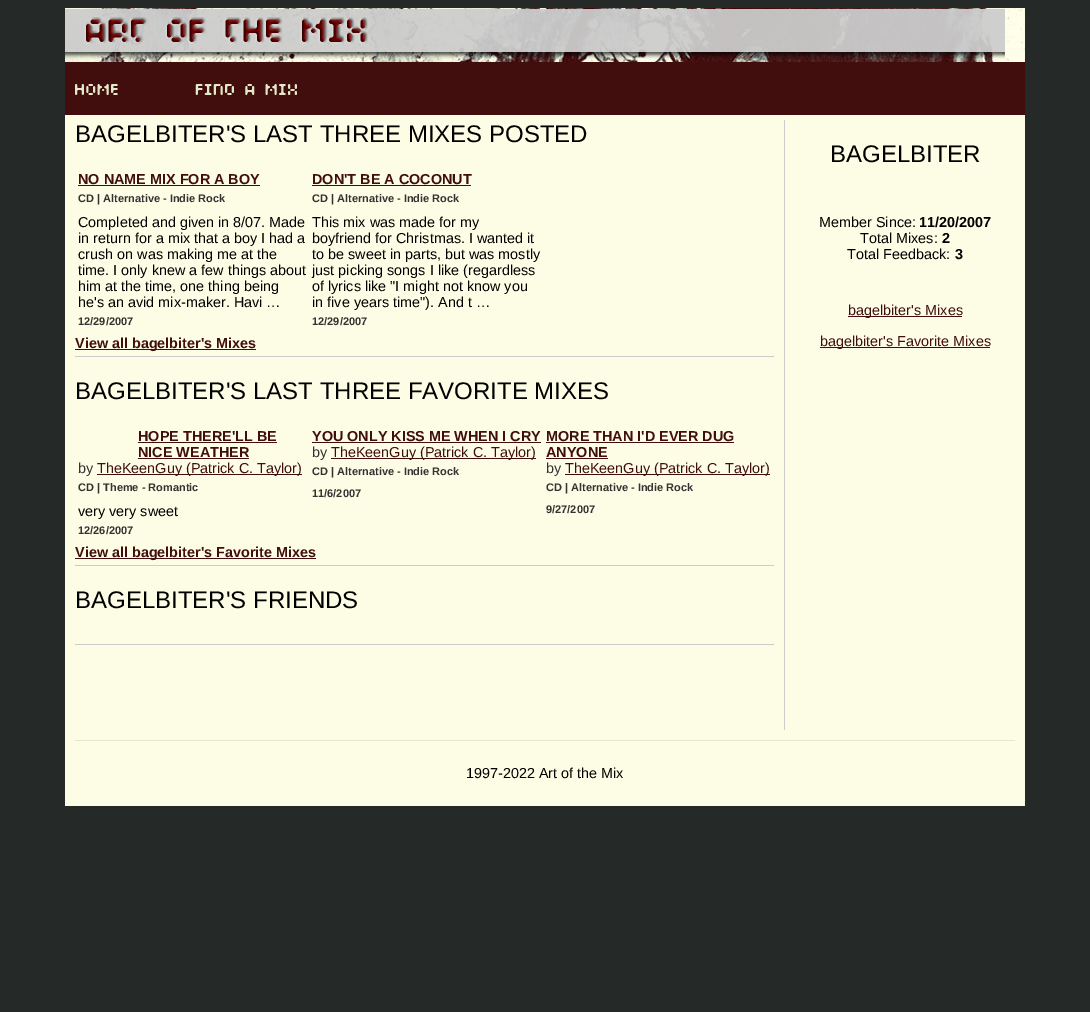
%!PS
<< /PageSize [1090 1012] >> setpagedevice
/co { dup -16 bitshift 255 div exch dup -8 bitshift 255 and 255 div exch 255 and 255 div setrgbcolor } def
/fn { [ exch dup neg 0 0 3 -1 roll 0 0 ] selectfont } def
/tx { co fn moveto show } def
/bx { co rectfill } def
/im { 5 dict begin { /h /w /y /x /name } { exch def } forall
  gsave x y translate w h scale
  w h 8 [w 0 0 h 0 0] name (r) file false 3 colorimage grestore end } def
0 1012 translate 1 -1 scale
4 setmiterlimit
0 0 1090 1012 16#252A29 bx
65 115 960 691 16#FDFDE5 bx
(media/1.raw) 65 8 960 54 im
(media/2.raw) 65 8 940 51 im
65 62 960 53 16#410D0D bx
(media/3.raw) 75 84 43 11 im
(media/4.raw) 195 84 102 11 im
784 120 1 610 16#CCCCCC bx
78 185 182 1 16#410D0D bx
312 185 159 1 16#410D0D bx
75 356 699 1 16#CCCCCC bx
75 349 181 1 16#410D0D bx
138 442 139 1 16#410D0D bx
138 458 111 1 16#410D0D bx
97 474 205 1 16#410D0D bx
312 442 229 1 16#410D0D bx
331 458 205 1 16#410D0D bx
546 442 188 1 16#410D0D bx
546 458 62 1 16#410D0D bx
565 474 205 1 16#410D0D bx
75 565 699 1 16#CCCCCC bx
75 558 241 1 16#410D0D bx
75 644 699 1 16#CCCCCC bx
848 316 114 1 16#410D0D bx
820 347 170 1 16#410D0D bx
75 740 940 1 16#E3E8C9 bx
(BAGELBITER'S LAST THREE MIXES POSTED) 75 142 /LiberationSans-Regular 24 16#000000 tx
(NO NAME MIX FOR A BOY) 78 184 /LiberationSans-Bold 14.4 16#410D0D tx
(CD | Alternative - Indie Rock) 78 202 /LiberationSans-Bold 11 16#333333 tx
(Completed and given in 8/07. Made) 78 227 /LiberationSans-Regular 14.4 16#000000 tx
(in return for a mix that a boy I had a) 78 243 /LiberationSans-Regular 14.4 16#000000 tx
(crush on was making me at the) 78 259 /LiberationSans-Regular 14.4 16#000000 tx
(time. I only knew a few things about) 78 275 /LiberationSans-Regular 14.4 16#000000 tx
(him at the time, one thing being) 78 291 /LiberationSans-Regular 14.4 16#000000 tx
(he's an avid mix-maker. Havi …) 78 307 /LiberationSans-Regular 14.4 16#000000 tx
(12/29/2007) 78 325 /LiberationSans-Bold 11 16#333333 tx
(DON'T BE A COCONUT) 312 184 /LiberationSans-Bold 14.4 16#410D0D tx
(CD | Alternative - Indie Rock) 312 202 /LiberationSans-Bold 11 16#333333 tx
(This mix was made for my) 312 227 /LiberationSans-Regular 14.4 16#000000 tx
(boyfriend for Christmas. I wanted it) 312 243 /LiberationSans-Regular 14.4 16#000000 tx
(to be sweet in parts, but was mostly) 312 259 /LiberationSans-Regular 14.4 16#000000 tx
(just picking songs I like \(regardless) 312 275 /LiberationSans-Regular 14.4 16#000000 tx
(of lyrics like "I might not know you) 312 291 /LiberationSans-Regular 14.4 16#000000 tx
(in five years time"\). And t …) 312 307 /LiberationSans-Regular 14.4 16#000000 tx
(12/29/2007) 312 325 /LiberationSans-Bold 11 16#333333 tx
(View all bagelbiter's Mixes) 75 348 /LiberationSans-Bold 14.4 16#410D0D tx
(BAGELBITER'S LAST THREE FAVORITE MIXES) 75 399 /LiberationSans-Regular 24 16#000000 tx
(HOPE THERE'LL BE) 138 441 /LiberationSans-Bold 14.4 16#410D0D tx
(NICE WEATHER) 138 457 /LiberationSans-Bold 14.4 16#410D0D tx
(by) 78 473 /LiberationSans-Regular 14.4 16#333333 tx
(TheKeenGuy \(Patrick C. Taylor\)) 97 473 /LiberationSans-Regular 14.4 16#410D0D tx
(CD | Theme - Romantic) 78 491 /LiberationSans-Bold 11 16#333333 tx
(very very sweet) 78 516 /LiberationSans-Regular 14.4 16#000000 tx
(12/26/2007) 78 534 /LiberationSans-Bold 11 16#333333 tx
(YOU ONLY KISS ME WHEN I CRY) 312 441 /LiberationSans-Bold 14.4 16#410D0D tx
(by) 312 457 /LiberationSans-Regular 14.4 16#333333 tx
(TheKeenGuy \(Patrick C. Taylor\)) 331 457 /LiberationSans-Regular 14.4 16#410D0D tx
(CD | Alternative - Indie Rock) 312 475 /LiberationSans-Bold 11 16#333333 tx
(11/6/2007) 312 497 /LiberationSans-Bold 11 16#333333 tx
(MORE THAN I'D EVER DUG) 546 441 /LiberationSans-Bold 14.4 16#410D0D tx
(ANYONE) 546 457 /LiberationSans-Bold 14.4 16#410D0D tx
(by) 546 473 /LiberationSans-Regular 14.4 16#333333 tx
(TheKeenGuy \(Patrick C. Taylor\)) 565 473 /LiberationSans-Regular 14.4 16#410D0D tx
(CD | Alternative - Indie Rock) 546 491 /LiberationSans-Bold 11 16#333333 tx
(9/27/2007) 546 513 /LiberationSans-Bold 11 16#333333 tx
(View all bagelbiter's Favorite Mixes) 75 557 /LiberationSans-Bold 14.4 16#410D0D tx
(BAGELBITER'S FRIENDS) 75 608 /LiberationSans-Regular 24 16#000000 tx
(BAGELBITER) 830 162 /LiberationSans-Regular 24 16#000000 tx
(Member Since:) 819 227 /LiberationSans-Regular 14.4 16#000000 tx
(11/20/2007) 919 227 /LiberationSans-Bold 14.4 16#000000 tx
(Total Mixes:) 860 243 /LiberationSans-Regular 14.4 16#000000 tx
(2) 942 243 /LiberationSans-Bold 14.4 16#000000 tx
(Total Feedback:) 847 259 /LiberationSans-Regular 14.4 16#000000 tx
(3) 955 259 /LiberationSans-Bold 14.4 16#000000 tx
(bagelbiter's Mixes) 848 315 /LiberationSans-Regular 14.4 16#410D0D tx
(bagelbiter's Favorite Mixes) 820 346 /LiberationSans-Regular 14.4 16#410D0D tx
(1997-2022 Art of the Mix) 466 778 /LiberationSans-Regular 14.4 16#000000 tx
showpage
